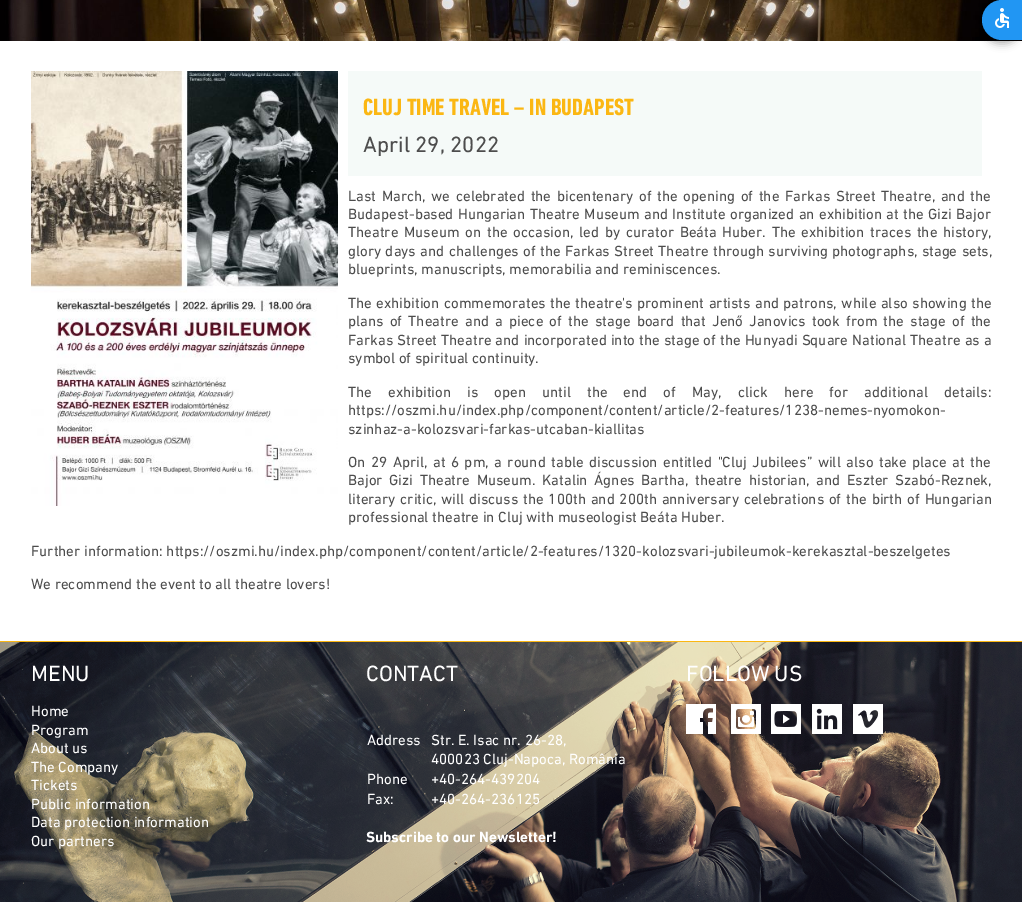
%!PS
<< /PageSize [1022 902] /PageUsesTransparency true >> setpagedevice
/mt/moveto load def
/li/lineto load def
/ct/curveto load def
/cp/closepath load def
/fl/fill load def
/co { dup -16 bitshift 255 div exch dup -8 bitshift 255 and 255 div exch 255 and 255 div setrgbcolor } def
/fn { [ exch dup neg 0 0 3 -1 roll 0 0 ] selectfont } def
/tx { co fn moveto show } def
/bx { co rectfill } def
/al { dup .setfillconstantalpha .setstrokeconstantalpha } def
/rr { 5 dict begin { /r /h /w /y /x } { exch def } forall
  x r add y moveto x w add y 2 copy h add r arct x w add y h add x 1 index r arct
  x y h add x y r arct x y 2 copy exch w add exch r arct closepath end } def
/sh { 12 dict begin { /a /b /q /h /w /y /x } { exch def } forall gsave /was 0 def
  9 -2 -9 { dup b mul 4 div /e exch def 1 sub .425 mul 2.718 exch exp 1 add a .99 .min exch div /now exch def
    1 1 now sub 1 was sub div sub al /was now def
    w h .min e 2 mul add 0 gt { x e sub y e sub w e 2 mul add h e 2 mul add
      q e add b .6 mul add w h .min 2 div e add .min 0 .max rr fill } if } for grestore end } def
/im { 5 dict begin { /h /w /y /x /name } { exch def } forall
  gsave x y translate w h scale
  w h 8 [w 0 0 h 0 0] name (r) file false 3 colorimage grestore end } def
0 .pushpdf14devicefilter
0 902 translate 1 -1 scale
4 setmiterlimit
0 0 1022 902 16#FFFFFF bx
(media/2.raw) 0 0 1022 41 im
16#000000 co
982 4 40 40 20 4 .28 sh
16#2196F3 co
1002 0 mt 1022 0 li 1022 40 li 1002 40 li 991 40 982 31 982 20 ct 982 9 991 0 1002 0 ct cp fl
(media/1.raw) 995 8 14 20 im
(media/3.raw) 31 71 307 435 im
348 71 634 105 16#F5FAF8 bx
(media/4.raw) 0 642 1022 260 im
0 641 1022 1 16#FBB713 bx
(media/5.raw) 686 704 30 30 im
(media/6.raw) 731 704 30 30 im
(media/7.raw) 771 704 30 30 im
(media/8.raw) 812 704 30 30 im
(media/9.raw) 853 704 30 30 im
(CLUJ TIME TRAVEL – IN BUDAPEST) 363 115 /DINNext-Bold 24 16#FBB713 tx
(April 29, 2022) 363 152 /DINNext-Regular 22.5 16#4D4D4D tx
/DINNext-Regular 15 fn
348 201 mt 2.1 0 32 (Last March, we celebrated the bicentenary of the opening of the Farkas Street Theatre, and the) widthshow
348 219 mt .8 0 32 (Budapest-based Hungarian Theatre Museum and Institute organized an exhibition at the Gizi Bajor) widthshow
348 237 mt 2.25 0 32 (Theatre Museum on the occasion, led by curator Beáta Huber. The exhibition traces the history,) widthshow
348 256 mt .75 0 32 (glory days and challenges of the Farkas Street Theatre through surviving photographs, stage sets,) widthshow
(blueprints, manuscripts, memorabilia and reminiscences.) 348 274 /DINNext-Regular 15 16#4D4D4D tx
348 308 mt .9 0 32 (The exhibition commemorates the theatre's prominent artists and patrons, while also showing the) widthshow
348 326 mt 2.6 0 32 (plans of Theatre and a piece of the stage board that Jenő Janovics took from the stage of the) widthshow
348 345 mt .5 0 32 (Farkas Street Theatre and incorporated into the stage of the Hunyadi Square National Theatre as a) widthshow
(symbol of spiritual continuity.) 348 363 /DINNext-Regular 15 16#4D4D4D tx
348 397 mt 12.5 0 32 (The exhibition is open until the end of May, click here for additional details:) widthshow
(https://oszmi.hu/index.php/component/content/article/2-features/1238-nemes-nyomokon-) 348 415 /DINNext-Regular 15 16#4D4D4D tx
(szinhaz-a-kolozsvari-farkas-utcaban-kiallitas) 348 434 /DINNext-Regular 15 16#4D4D4D tx
348 467 mt 1.9 0 32 (On 29 April, at 6 pm, a round table discussion entitled "Cluj Jubilees” will also take place at the) widthshow
348 485 mt 3.1 0 32 (Bajor Gizi Theatre Museum. Katalin Ágnes Bartha, theatre historian, and Eszter Szabó-Reznek,) widthshow
348 504 mt 1.25 0 32 (literary critic, will discuss the 100th and 200th anniversary celebrations of the birth of Hungarian) widthshow
(professional theatre in Cluj with museologist Beáta Huber.) 348 522 /DINNext-Regular 15 16#4D4D4D tx
(Further information: https://oszmi.hu/index.php/component/content/article/2-features/1320-kolozsvari-jubileumok-kerekasztal-beszelgetes) 31 556 /DINNext-Regular 15 16#4D4D4D tx
(We recommend the event to all theatre lovers!) 31 589 /DINNext-Regular 15 16#4D4D4D tx
(MENU) 31 681 /DINNext-Regular 22.5 16#FFFFFF tx
(Home) 31 716 /DINNext-Regular 15 16#FFFFFF tx
(Program) 31 735 /DINNext-Regular 15 16#FFFFFF tx
(About us) 31 753 /DINNext-Regular 15 16#FFFFFF tx
(The Company) 31 772 /DINNext-Regular 15 16#FFFFFF tx
(Tickets) 31 790 /DINNext-Regular 15 16#FFFFFF tx
(Public information) 31 809 /DINNext-Regular 15 16#FFFFFF tx
(Data protection information) 31 827 /DINNext-Regular 15 16#FFFFFF tx
(Our partners) 31 846 /DINNext-Regular 15 16#FFFFFF tx
(CONTACT) 366 681 /DINNext-Regular 22.5 16#FFFFFF tx
(Address) 367 745 /DINNext-Regular 15 16#FFFFFF tx
(Str. E. Isac nr. 26-28,) 431 745 /DINNext-Regular 15 16#FFFFFF tx
(400023 Cluj-Napoca, România) 431 764 /DINNext-Regular 15 16#FFFFFF tx
(Phone) 367 784 /DINNext-Regular 15 16#FFFFFF tx
(+40-264-439204) 431 784 /DINNext-Regular 15 16#FFFFFF tx
(Fax:) 367 804 /DINNext-Regular 15 16#FFFFFF tx
(+40-264-236125) 431 804 /DINNext-Regular 15 16#FFFFFF tx
(Subscribe to our Newsletter!) 366 842 /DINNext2-Bold 15 16#FFFFFF tx
(FOLLOW US) 686 681 /DINNext-Regular 22.5 16#FFFFFF tx
.poppdf14devicefilter showpage
